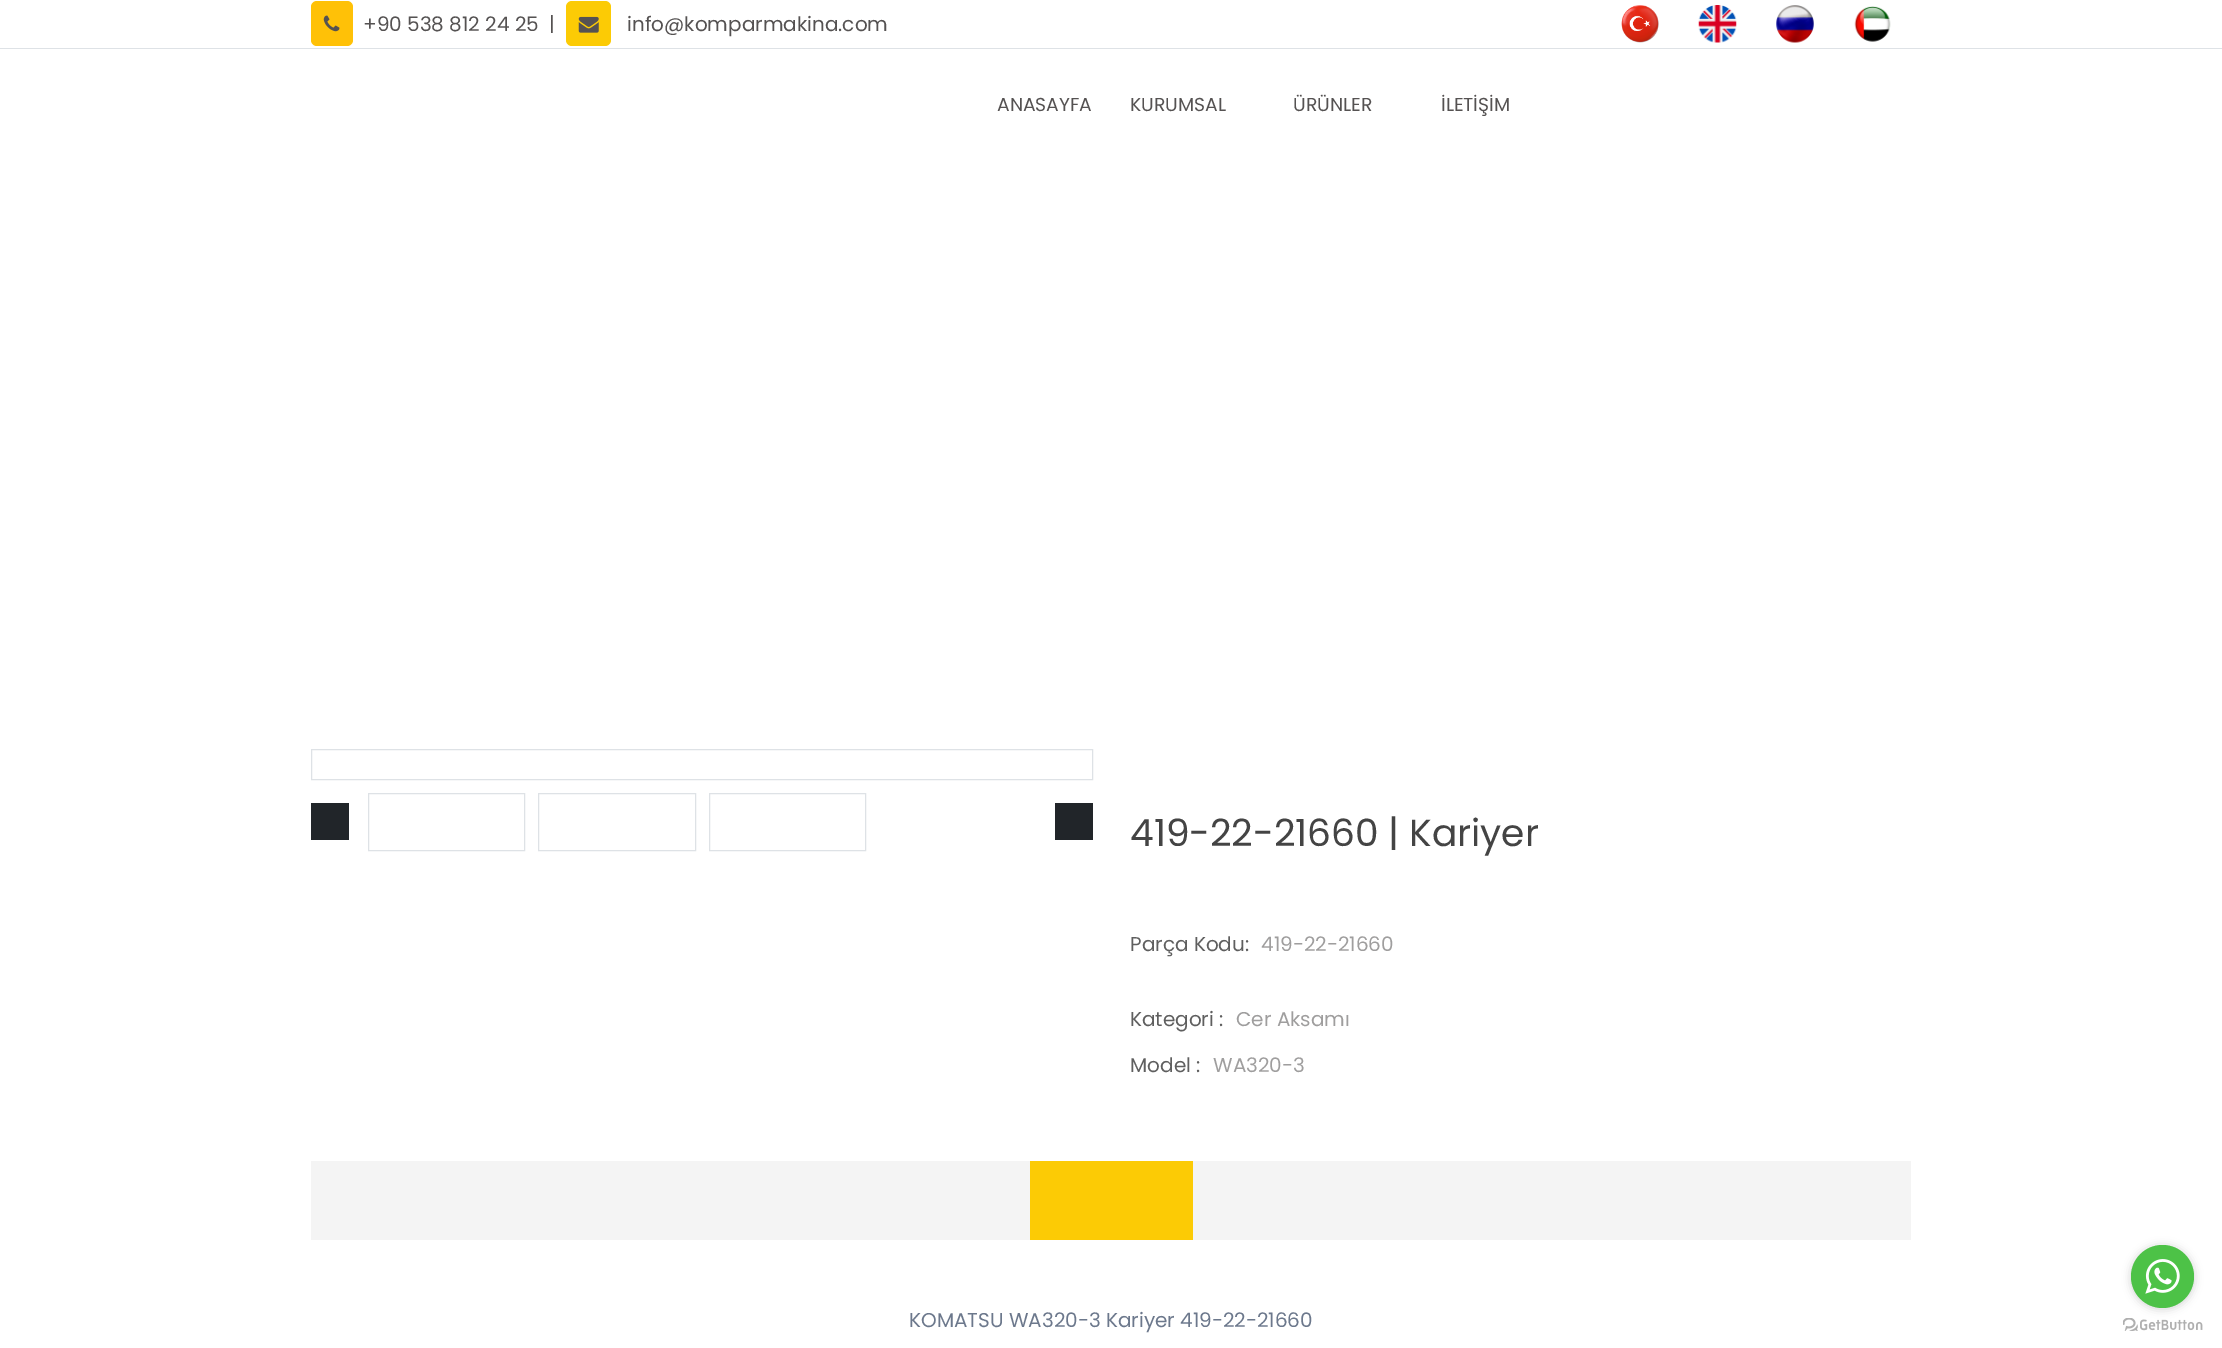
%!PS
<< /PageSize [2222 1348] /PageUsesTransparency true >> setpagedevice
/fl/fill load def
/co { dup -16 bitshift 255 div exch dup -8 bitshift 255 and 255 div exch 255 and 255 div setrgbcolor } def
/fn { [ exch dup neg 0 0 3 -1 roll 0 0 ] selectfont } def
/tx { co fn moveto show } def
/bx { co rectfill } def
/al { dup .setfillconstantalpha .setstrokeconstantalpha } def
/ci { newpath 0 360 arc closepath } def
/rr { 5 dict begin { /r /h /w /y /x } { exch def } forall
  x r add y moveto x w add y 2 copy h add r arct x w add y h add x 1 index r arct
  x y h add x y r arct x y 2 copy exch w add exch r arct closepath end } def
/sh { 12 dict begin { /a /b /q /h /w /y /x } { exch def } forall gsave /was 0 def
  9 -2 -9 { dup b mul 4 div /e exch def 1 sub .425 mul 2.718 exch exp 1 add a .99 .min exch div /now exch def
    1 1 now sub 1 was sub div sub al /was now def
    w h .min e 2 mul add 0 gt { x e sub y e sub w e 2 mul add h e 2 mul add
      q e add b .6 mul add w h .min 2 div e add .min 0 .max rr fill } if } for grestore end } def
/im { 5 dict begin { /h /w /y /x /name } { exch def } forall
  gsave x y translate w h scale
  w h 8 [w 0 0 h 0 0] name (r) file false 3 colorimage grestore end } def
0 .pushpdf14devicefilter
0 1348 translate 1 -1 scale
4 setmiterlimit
0 0 2222 1348 16#FFFFFF bx
0 48 2222 1 16#DEE2E6 bx
16#FFC107 co
311 1 42 45 6 rr fl
(media/1.raw) 323 15 17 17 im
16#FCCB05 co
566 1 45 45 6 rr fl
(media/2.raw) 578 16 21 17 im
(media/3.raw) 1621 5 38 38 im
(media/4.raw) 1698 5 39 38 im
(media/5.raw) 1776 5 38 38 im
(media/6.raw) 1854 6 37 36 im
16#DEE2E6 co
311.5 749.5 781 30 rectstroke
368.5 793.5 156 57 rectstroke
538.5 793.5 157 57 rectstroke
709.5 793.5 156 57 rectstroke
311 803 38 37 16#212529 bx
1055 803 38 37 16#212529 bx
311 1161 1600 79 16#F4F4F4 bx
1030 1161 163 79 16#FCCB05 bx
(media/8.raw) 2123 1318 80 13 im
16#888888 co
2131 1246 63 63 31.5 4.5 .4 sh
16#4DC247 co
2162.5 1276.5 31.5 ci fl
(media/7.raw) 2145 1259 35 35 im
(+90 538 812 24 25) 363 31 /Poppins-Regular 20 16#555252 tx
(|) 549 31 /Poppins-Regular 20 16#555252 tx
(info@komparmakina.com) 627 31 /Poppins-Regular 20 16#555252 tx
(ANASAYFA) 997 111 /Poppins-Regular 18.75 16#555252 tx
(KURUMSAL) 1130 111 /Poppins-Regular 18.75 16#555252 tx
(ÜRÜNLER) 1293 111 /Poppins-Regular 18.75 16#555252 tx
(İLETİŞİM) 1441 111 /Poppins-Regular 18.75 16#555252 tx
(419-22-21660 | Kariyer) 1130 846 /Poppins-Regular 37.5 16#444444 tx
(Parça Kodu:) 1130 951 /Poppins-Regular 20 16#5F5F5F tx
(419-22-21660) 1261 951 /Poppins-Regular 20 16#9F9E9E tx
(Kategori :) 1130 1026 /Poppins-Regular 20 16#5F5F5F tx
(Cer Aksamı) 1236 1026 /Poppins-Regular 20 16#9F9E9E tx
(Model :) 1130 1072 /Poppins-Regular 20 16#5F5F5F tx
(WA320-3) 1213 1072 /Poppins-Regular 20 16#9F9E9E tx
(KOMATSU WA320-3 Kariyer 419-22-21660) 909 1327 /Poppins-Regular 20 16#6C788C tx
.poppdf14devicefilter showpage
